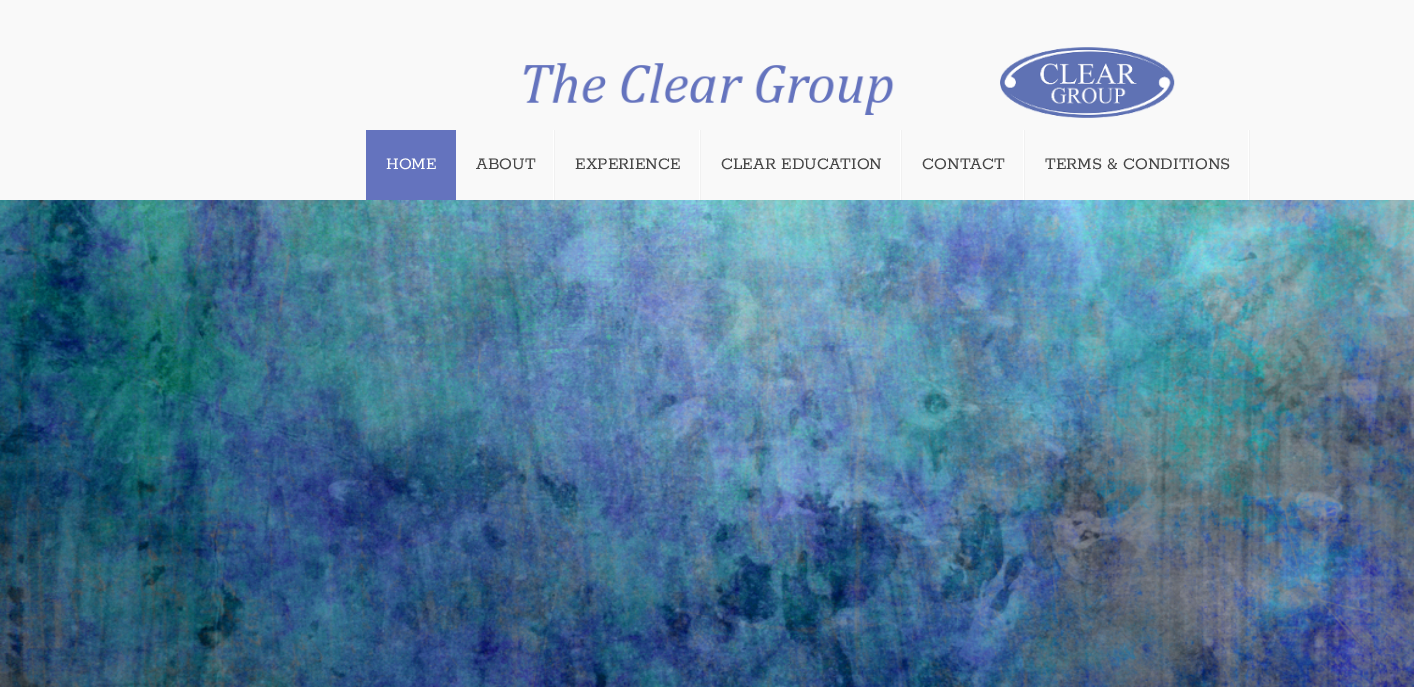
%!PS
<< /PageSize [1414 697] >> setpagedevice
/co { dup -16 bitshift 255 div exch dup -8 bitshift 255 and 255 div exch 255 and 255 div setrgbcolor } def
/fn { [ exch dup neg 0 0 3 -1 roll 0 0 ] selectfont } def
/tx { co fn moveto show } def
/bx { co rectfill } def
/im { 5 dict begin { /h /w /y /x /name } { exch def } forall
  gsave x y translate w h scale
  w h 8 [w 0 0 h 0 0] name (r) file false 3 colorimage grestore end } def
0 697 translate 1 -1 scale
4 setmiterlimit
0 0 1414 697 16#FFFFFF bx
0 0 1414 200 16#F9F9F9 bx
(media/1.raw) 523 47 652 71 im
366 130 90 70 16#6473BE bx
(media/2.raw) 553 130 2 70 im
(media/2.raw) 699 130 2 70 im
(media/2.raw) 900 130 2 70 im
(media/2.raw) 1023 130 2 70 im
(media/2.raw) 1248 130 2 70 im
(media/3.raw) 0 200 1414 487 im
(HOME) 386 169 /Rokkitt-SemiBold 18 16#FFFFFF tx
(ABOUT) 476 169 /Rokkitt-SemiBold 18 16#464646 tx
(EXPERIENCE) 575 169 /Rokkitt-SemiBold 18 16#464646 tx
(CLEAR EDUCATION) 721 169 /Rokkitt-SemiBold 18 16#464646 tx
(CONTACT) 922 169 /Rokkitt-SemiBold 18 16#464646 tx
(TERMS & CONDITIONS) 1045 169 /Rokkitt-SemiBold 18 16#464646 tx
showpage
